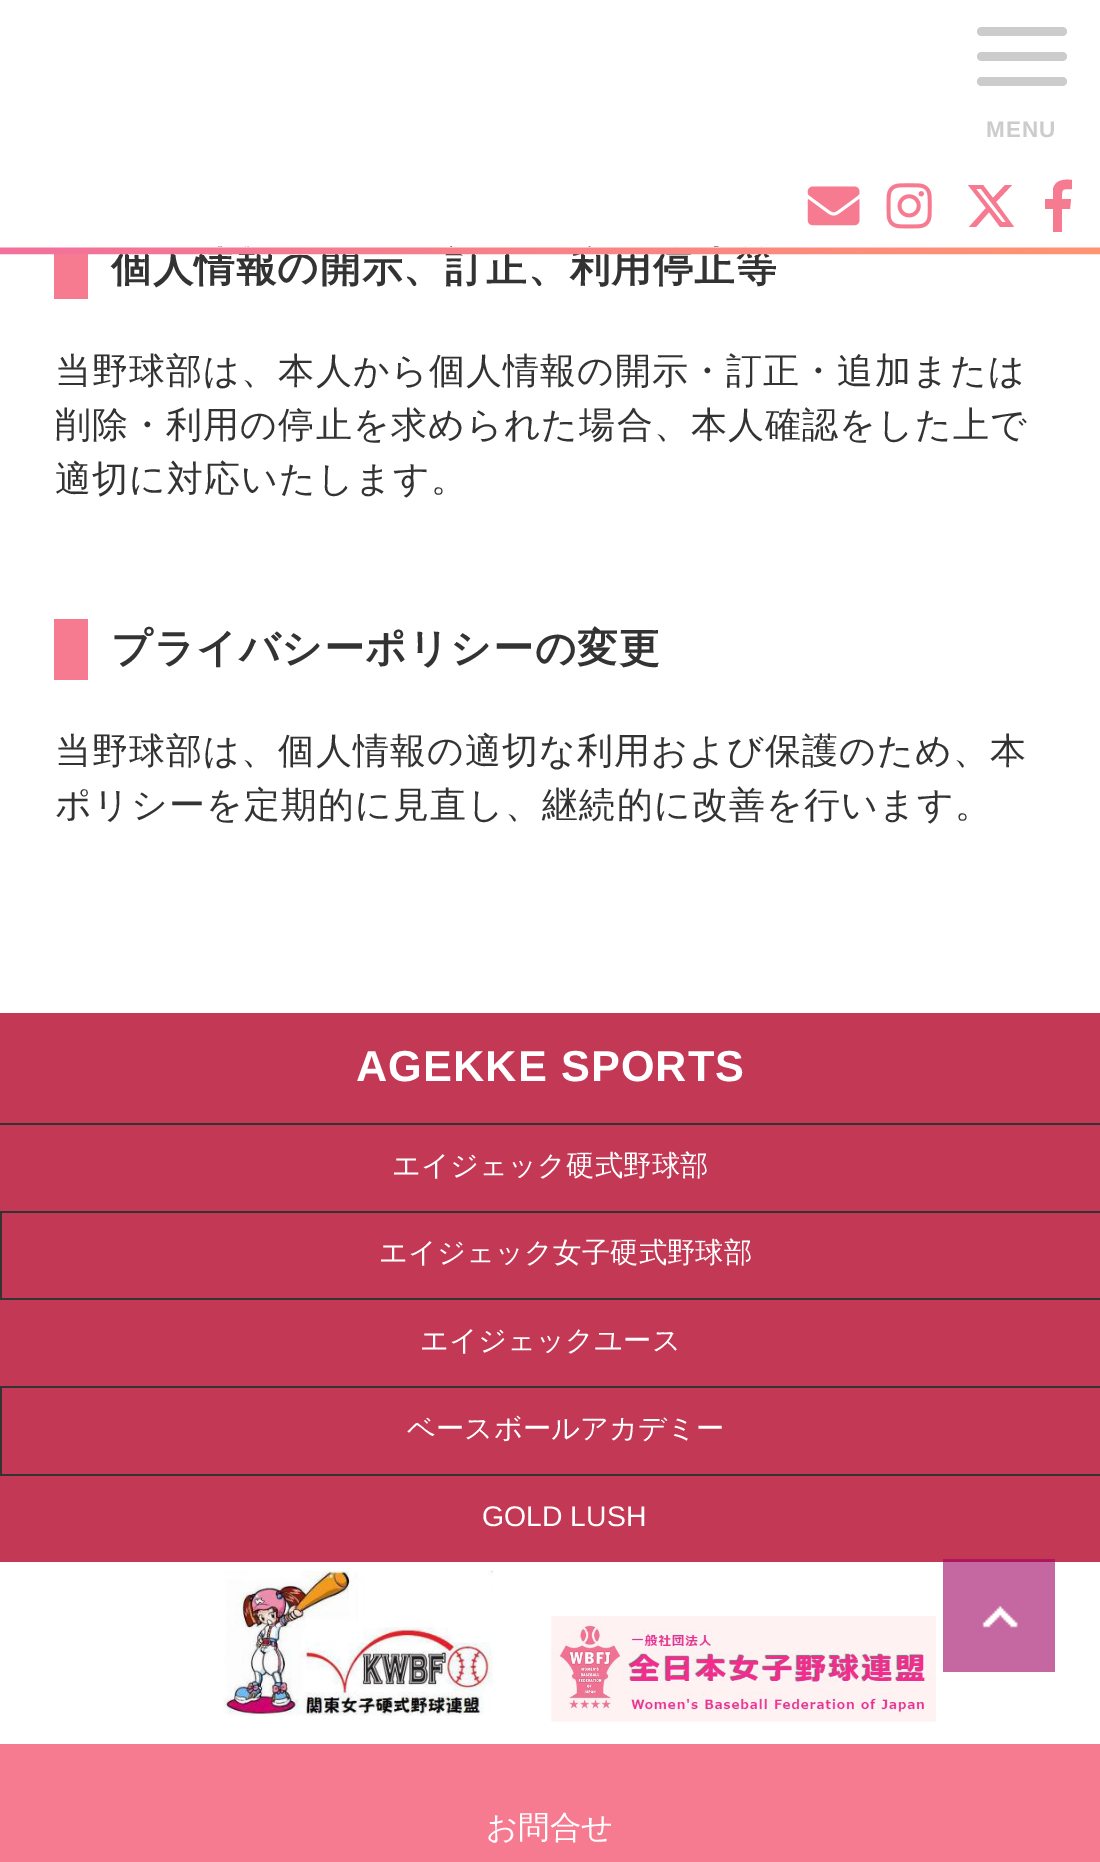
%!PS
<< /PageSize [1100 1862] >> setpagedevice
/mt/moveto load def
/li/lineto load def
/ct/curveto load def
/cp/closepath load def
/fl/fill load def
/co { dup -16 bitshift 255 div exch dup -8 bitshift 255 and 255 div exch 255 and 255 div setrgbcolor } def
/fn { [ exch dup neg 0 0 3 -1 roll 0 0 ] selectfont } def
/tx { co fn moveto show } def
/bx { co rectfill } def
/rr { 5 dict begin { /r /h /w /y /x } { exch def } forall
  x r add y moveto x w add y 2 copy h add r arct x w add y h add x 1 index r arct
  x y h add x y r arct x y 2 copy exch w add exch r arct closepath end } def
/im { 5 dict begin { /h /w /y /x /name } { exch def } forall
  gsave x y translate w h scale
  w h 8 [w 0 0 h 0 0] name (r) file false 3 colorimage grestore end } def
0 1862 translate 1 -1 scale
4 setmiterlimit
0 0 1100 1862 16#FFFFFF bx
16#CCCCCC co
977 27 90 9 4.5 rr fl
977 52 90 9 4.5 rr fl
977 77 90 9 4.5 rr fl
(media/2.raw) 807 186 53 40 im
(media/3.raw) 886 183 46 46 im
16#F67B90 co
1005 185 mt 1012 185 li 996 202 li 1014 227 li 1000 227 li 989 212 li 976 227 li 969 227 li 986 208 li 968 185 li 983 185 li 993 198 li cp 1002 222 mt 1006 222 li 981 189 li 976 189 li cp fl
1053 232 mt 1053 209 li 1045 209 li 1045 199 li 1053 199 li 1053 189 li 1055 180 1064 179 1072 180 ct 1072 189 li 1061 189 1062 189 1062 199 ct 1071 199 li 1070 209 li 1062 209 li 1062 232 li fl
54 254 34 45 16#F67B90 bx
54 619 34 61 16#F67B90 bx
0 1013 1100 549 16#C33854 bx
943 1559 112 3 16#AD175B bx
0 1123 1100 2 16#333333 bx
0 1211 1100 2 16#333333 bx
0 1211 2 87 16#333333 bx
0 1298 1100 2 16#333333 bx
0 1386 1100 2 16#333333 bx
0 1386 2 88 16#333333 bx
0 1474 1100 2 16#333333 bx
943 1562 112 110 16#C567A0 bx
(media/4.raw) 223 1570 270 146 im
(media/5.raw) 551 1616 385 106 im
0 1744 1100 118 16#F67B90 bx
(media/6.raw) 982 1606 36 22 im
/LiberationSans-Bold 22.5 fn
16#CCCCCC co
986 137 mt 1.1 0 (MENU) ashow
/WenQuanYiZenHei-Bold 40.5 fn
16#333333 co
111 281 mt 1.1 0 (個人情報の開示、訂正、利用停止等) ashow
218 247 501 1 16#FFFFFF bx
(media/1.raw) 0 247 1100 8 im
/WenQuanYiZenHei-Medium 36 fn
16#333333 co
55 383 mt 1.1 0 (当野球部は、本人から個人情報の開示・訂正・追加または) ashow
55 437 mt 1.1 0 (削除・利用の停止を求められた場合、本人確認をした上で) ashow
55 491 mt 1.1 0 (適切に対応いたします。) ashow
/WenQuanYiZenHei-Bold 40.5 fn
111 662 mt 1.1 0 (プライバシーポリシーの変更) ashow
/WenQuanYiZenHei-Medium 36 fn
55 763 mt 1.1 0 (当野球部は、個人情報の適切な利用および保護のため、本) ashow
55 817 mt 1.1 0 (ポリシーを定期的に見直し、継続的に改善を行います。) ashow
/LiberationSans-Bold 43.25 fn
16#FFFFFF co
356 1081 mt 1.1 0 (AGEKKE SPORTS) ashow
(エイジェック硬式野球部) 392 1175 /WenQuanYiZenHei-Medium 28.4 16#FFFFFF tx
(エイジェック女子硬式野球部) 379 1262 /WenQuanYiZenHei-Medium 28.4 16#FFFFFF tx
(エイジェックユース) 420 1350 /WenQuanYiZenHei-Medium 28.4 16#FFFFFF tx
(ベースボールアカデミー) 407 1438 /WenQuanYiZenHei-Medium 28.4 16#FFFFFF tx
(GOLD LUSH) 482 1526 /LiberationSans-Regular 28.4 16#FFFFFF tx
(お問合せ) 486 1838 /WenQuanYiZenHei-Medium 31.5 16#FFFFFF tx
showpage
